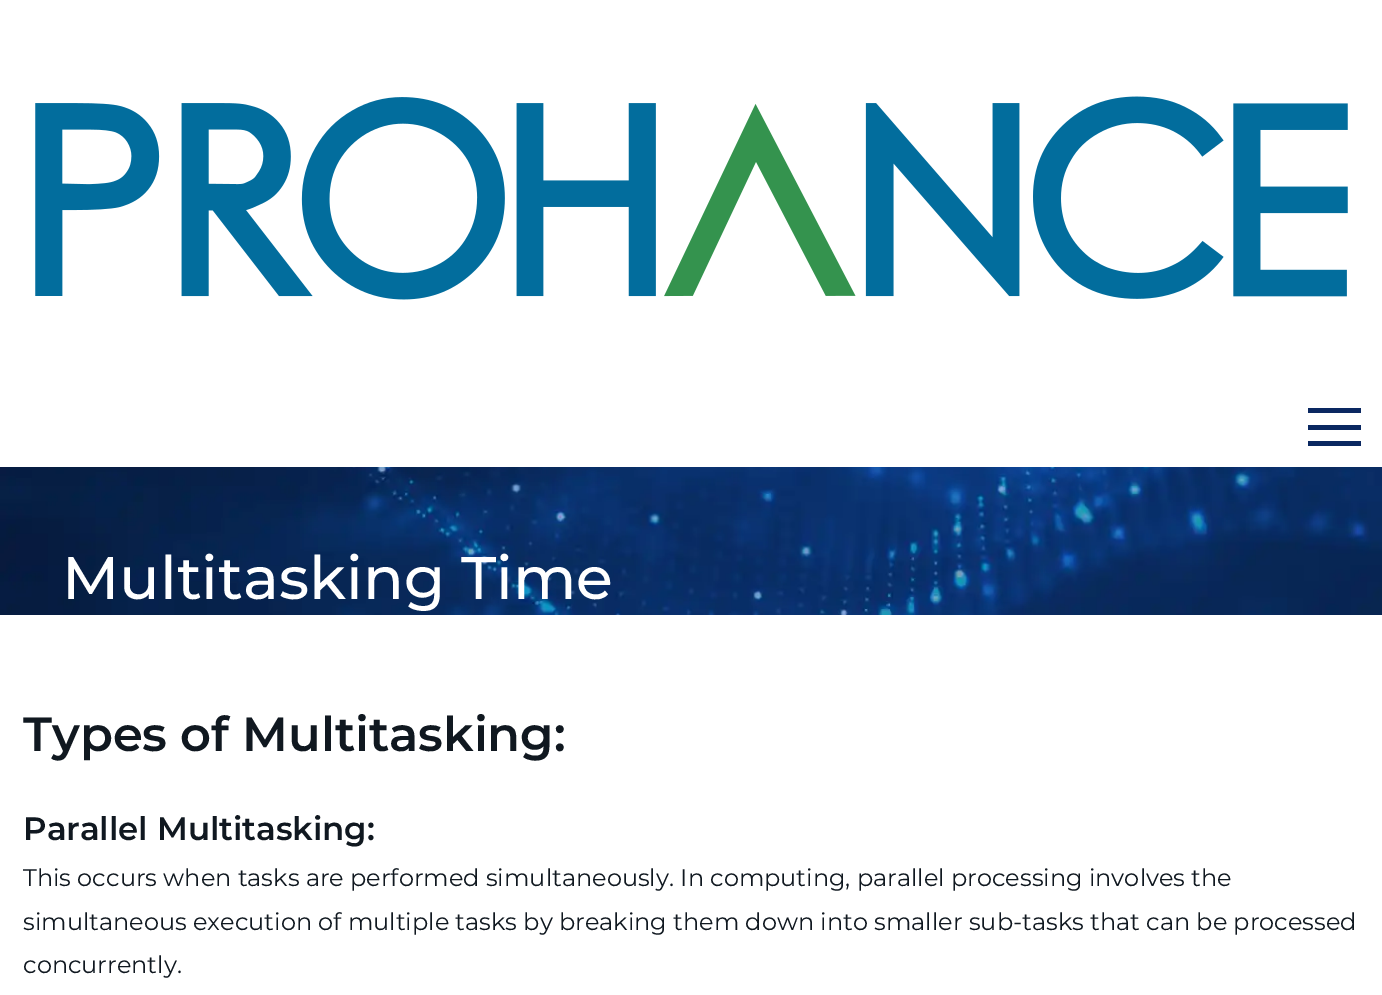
%!PS
<< /PageSize [1382 995] >> setpagedevice
/co { dup -16 bitshift 255 div exch dup -8 bitshift 255 and 255 div exch 255 and 255 div setrgbcolor } def
/fn { [ exch dup neg 0 0 3 -1 roll 0 0 ] selectfont } def
/tx { co fn moveto show } def
/bx { co rectfill } def
/im { 5 dict begin { /h /w /y /x /name } { exch def } forall
  gsave x y translate w h scale
  w h 8 [w 0 0 h 0 0] name (r) file false 3 colorimage grestore end } def
0 995 translate 1 -1 scale
4 setmiterlimit
0 0 1382 995 16#FFFFFF bx
(media/1.raw) 35 96 1313 204 im
1308 408 53 5 16#0A2861 bx
1308 425 53 5 16#0A2861 bx
1308 441 53 5 16#0A2861 bx
(media/2.raw) 0 467 1382 148 im
(Multitasking Time) 62 599 /Montserrat-Medium 60 16#FFFFFF tx
(Types of Multitasking:) 23 751 /Montserrat-SemiBold 48 16#101820 tx
(Parallel Multitasking:) 23 840 /Montserrat-SemiBold 32.4 16#101820 tx
(This occurs when tasks are performed simultaneously. In computing, parallel processing involves the) 23 886 /Montserrat-Regular 24 16#101820 tx
(simultaneous execution of multiple tasks by breaking them down into smaller sub-tasks that can be processed) 23 930 /Montserrat-Regular 24 16#101820 tx
(concurrently.) 23 973 /Montserrat-Regular 24 16#101820 tx
showpage
